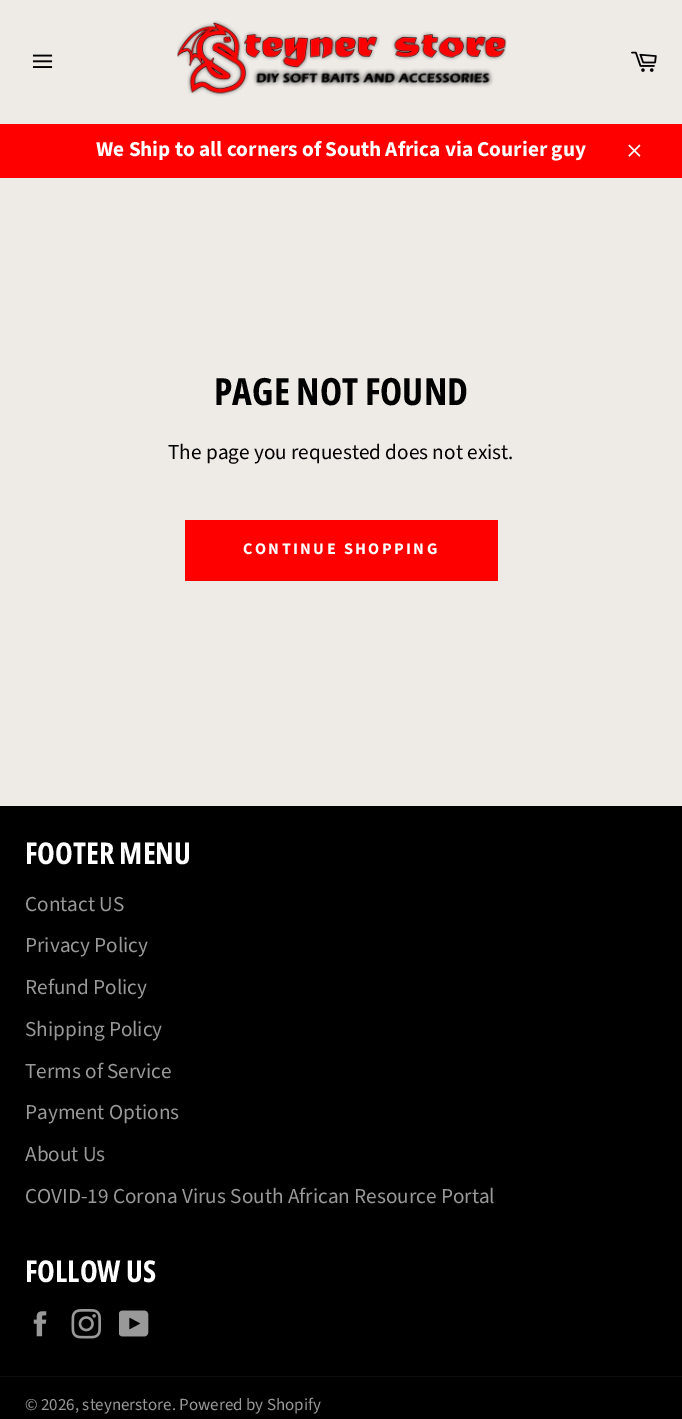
%!PS
<< /PageSize [682 1419] >> setpagedevice
/mt/moveto load def
/co { dup -16 bitshift 255 div exch dup -8 bitshift 255 and 255 div exch 255 and 255 div setrgbcolor } def
/fn { [ exch dup neg 0 0 3 -1 roll 0 0 ] selectfont } def
/tx { co fn moveto show } def
/bx { co rectfill } def
/im { 5 dict begin { /h /w /y /x /name } { exch def } forall
  gsave x y translate w h scale
  w h 8 [w 0 0 h 0 0] name (r) file false 3 colorimage grestore end } def
0 1419 translate 1 -1 scale
4 setmiterlimit
0 0 682 1419 16#EEEBE7 bx
(media/1.raw) 32 54 21 14 im
(media/2.raw) 177 20 330 77 im
(media/3.raw) 631 51 26 21 im
0 124 682 54 16#FE0000 bx
(media/4.raw) 628 144 13 13 im
185 520 313 61 16#FE0000 bx
0 806 682 613 16#000000 bx
(media/5.raw) 33 1311 14 26 im
(media/6.raw) 71 1309 30 30 im
(media/7.raw) 119 1310 30 27 im
0 1376 682 1 16#0D0D0D bx
(We Ship to all corners of South Africa via Courier guy) 96 156 /SourceSansPro-Bold 21.25 16#FFFFFF tx
(PAGE NOT FOUND) 214 405 /OpenSansCondensed-Bold 37.5 16#000000 tx
(The page you requested does not exist.) 168 459 /SourceSansPro-Regular 21.25 16#000000 tx
/SourceSansPro-Bold 16.25 fn
16#FFFFFF co
243 554 mt 2.4 0 (CONTINUE SHOPPING) ashow
(FOOTER MENU) 25 864 /OpenSansCondensed-Bold 30 16#FFFFFF tx
(Contact US) 25 911 /SourceSansPro-Regular 21.25 16#999999 tx
(Privacy Policy) 25 952 /SourceSansPro-Regular 21.25 16#999999 tx
(Refund Policy) 25 994 /SourceSansPro-Regular 21.25 16#999999 tx
(Shipping Policy) 25 1036 /SourceSansPro-Regular 21.25 16#999999 tx
(Terms of Service) 25 1078 /SourceSansPro-Regular 21.25 16#999999 tx
(Payment Options) 25 1119 /SourceSansPro-Regular 21.25 16#999999 tx
(About Us) 25 1161 /SourceSansPro-Regular 21.25 16#999999 tx
(COVID-19 Corona Virus South African Resource Portal) 25 1203 /SourceSansPro-Regular 21.25 16#999999 tx
(FOLLOW US) 25 1282 /OpenSansCondensed-Bold 30 16#FFFFFF tx
(© 2026, steynerstore. Powered by Shopify) 25 1410 /SourceSansPro-Regular 17 16#999999 tx
showpage
